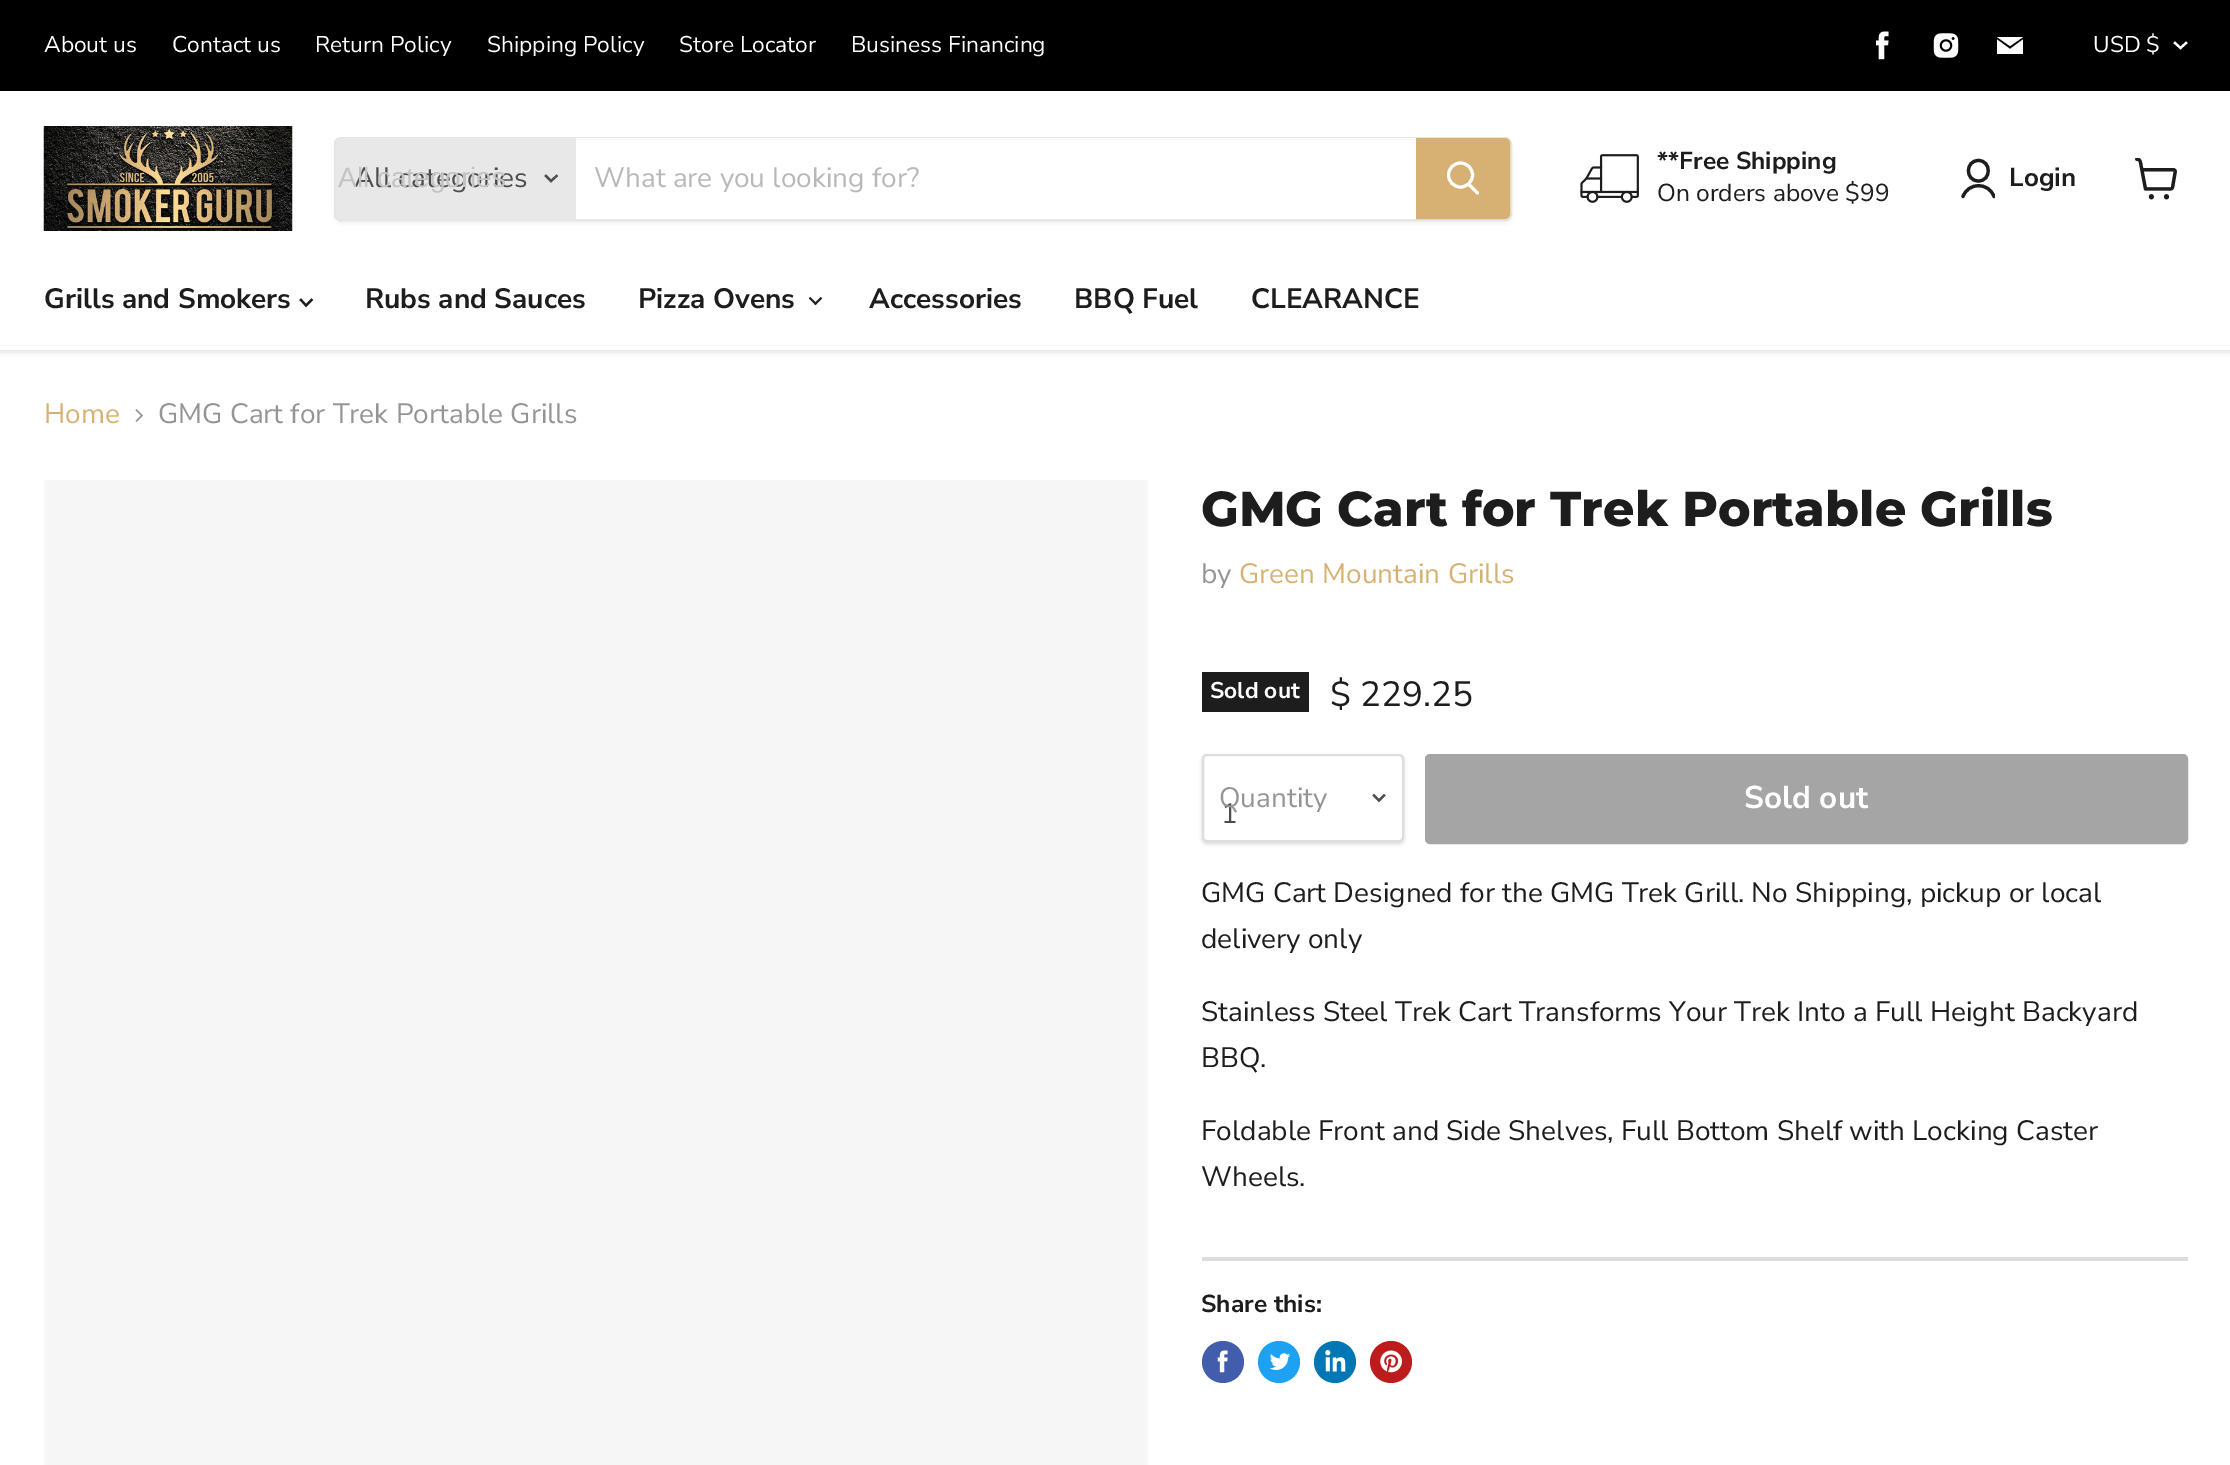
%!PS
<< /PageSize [2230 1465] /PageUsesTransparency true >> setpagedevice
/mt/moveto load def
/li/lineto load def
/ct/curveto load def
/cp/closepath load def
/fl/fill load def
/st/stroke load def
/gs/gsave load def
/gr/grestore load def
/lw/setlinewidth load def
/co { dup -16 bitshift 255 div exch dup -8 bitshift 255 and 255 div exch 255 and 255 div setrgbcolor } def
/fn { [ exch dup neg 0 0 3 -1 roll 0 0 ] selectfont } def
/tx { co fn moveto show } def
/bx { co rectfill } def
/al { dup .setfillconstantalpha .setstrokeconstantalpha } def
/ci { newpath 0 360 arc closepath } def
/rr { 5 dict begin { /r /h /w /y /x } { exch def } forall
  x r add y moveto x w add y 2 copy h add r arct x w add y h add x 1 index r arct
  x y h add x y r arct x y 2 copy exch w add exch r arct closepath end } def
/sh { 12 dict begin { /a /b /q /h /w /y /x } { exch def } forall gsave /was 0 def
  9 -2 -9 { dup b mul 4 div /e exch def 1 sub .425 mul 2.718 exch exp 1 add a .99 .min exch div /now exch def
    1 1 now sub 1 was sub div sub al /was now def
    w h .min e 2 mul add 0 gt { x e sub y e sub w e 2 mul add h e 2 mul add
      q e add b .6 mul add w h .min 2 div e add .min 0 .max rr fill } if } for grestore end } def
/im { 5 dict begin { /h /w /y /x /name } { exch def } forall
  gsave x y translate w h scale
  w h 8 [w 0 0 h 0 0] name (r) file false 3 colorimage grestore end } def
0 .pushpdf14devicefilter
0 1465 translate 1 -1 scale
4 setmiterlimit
0 0 2230 1465 16#FFFFFF bx
gs
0 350 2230 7 rectclip
16#808080 co
0 93 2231 259 0 3.5 .25 sh
gr
0 0 2230 91 16#000000 bx
(media/1.raw) 1876 31 13 29 im
(media/2.raw) 1933 33 26 25 im
16#FFFFFF co
2023 37 mt 1997 37 li 2010 46 li cp 2010 49 mt 1997 39.5 li 1997 54 li 2023 54 li 2023 39.5 li cp eofill
2.2 lw
2 setlinecap
2180.5 48 mt 2186 43 li 2180.5 48 mt 2175 43 li st
(media/3.raw) 43 126 250 105 im
gs
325 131 mt 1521 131 li 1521 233 li 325 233 li cp 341 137 mt 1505 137 li 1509 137 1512 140 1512 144 ct 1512 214 li 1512 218 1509 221 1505 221 ct 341 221 li 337 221 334 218 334 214 ct 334 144 li 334 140 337 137 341 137 ct cp eoclip newpath
16#808080 co
334 140 1178 84 7 2.5 .11 sh
gr
0.2 al
16#808080 co
2 lw
0 setlinecap
335 138 1176 82 6 rr st
1 al
16#E8E8E8 co
341 138 mt 576 138 li 576 219 li 341 219 li 338 219 336 217 336 214 ct 336 143 li 336 140 338 138 341 138 ct cp fl
16#4D4D4D co
2.2 lw
2 setlinecap
551 181 mt 556.5 176 li 551 181 mt 546 176 li st
576 138 840 1 16#FFFFFF bx
16#D7B173 co
1417 139 mt 1505 139 li 1507 139 1509 141 1509 143 ct 1509 214 li 1509 216 1507 218 1505 218 ct 1417 218 li cp gs fl gr
2 lw
0 setlinecap
st
16#FFFFFF co
3 lw
1 setlinecap
1477.5 193 mt 1469 184.5 li st
0 setlinecap
1460.5 175 12 ci st
(media/4.raw) 1580 154 59 49 im
16#1D1D1D co
3.2 lw
1 setlinecap
1 setlinejoin
1978.5 181 mt 1991.5 181 1991.5 160.5 1978.5 160.5 ct 1965 160.5 1965 181 1978.5 181 ct cp st
gs
1960 158 35 42 rectclip
1994 196.5 mt 1988.5 182 1968.5 182 1963 196.5 ct st
gr
(media/5.raw) 2135 158 42 42 im
2.2 lw
2 setlinecap
0 setlinejoin
306 305.5 mt 311.5 300 li 306 305.5 mt 301 300 li st
(media/6.raw) 809 296 14 10 im
(media/7.raw) 135 409 8 13 im
44 480 1104 985 16#F6F6F6 bx
1202 672 107 40 16#1D1D1D bx
16#000000 co
1202 756 202 88 5 2 .15 sh
16#FFFFFF co
1203 755 200 86 4 rr gs fl gr
16#DDDDDD co
2 lw
0 setlinecap
st
16#4D4D4D co
2.2 lw
2 setlinecap
1379 800.5 mt 1384 795.5 li 1379 800.5 mt 1374 795.5 li st
16#A5A5A5 co
1426 755 761 88 4 rr gs fl gr
2 lw
0 setlinecap
st
1202 1257 986 4 16#DDDDDD bx
16#425DAB co
1223 1362 21 ci fl
(media/8.raw) 1217 1350 11 23 im
16#1DA1F2 co
1279 1362 21 ci fl
(media/9.raw) 1269 1353 22 17 im
16#0077B5 co
1335 1362 21 ci fl
(media/10.raw) 1325 1350 21 22 im
16#BD1C1C co
1391 1362 21 ci fl
(media/11.raw) 1380 1350 22 23 im
(About us) 44 52 /NunitoSans-Regular 22.75 16#FFFFFF tx
(Contact us) 172 52 /NunitoSans-Regular 22.75 16#FFFFFF tx
(Return Policy) 315 52 /NunitoSans-Regular 22.75 16#FFFFFF tx
(Shipping Policy) 487 52 /NunitoSans-Regular 22.75 16#FFFFFF tx
(Store Locator) 679 52 /NunitoSans-Regular 22.75 16#FFFFFF tx
(Business Financing) 851 52 /NunitoSans-Regular 22.75 16#FFFFFF tx
(USD $) 2093 52 /NunitoSans-Regular 22.75 16#FFFFFF tx
(All categories) 354 187 /NunitoSans-Regular 28 16#4D4D4D tx
(All categories) 338 187 /LiberationSans-Regular 28 16#C3C3C3 tx
(What are you looking for?) 594 187 /NunitoSans-Regular 28 16#B8B8B8 tx
(**Free Shipping) 1657 169 /NunitoSans-Bold 24.5 16#1D1D1D tx
(On orders above $99) 1657 201 /NunitoSans-Regular 24.5 16#1D1D1D tx
(Login) 2009 186 /NunitoSans-Bold 26 16#1D1D1D tx
(Grills and Smokers) 44 308 /NunitoSans-Bold 28 16#1D1D1D tx
(Rubs and Sauces) 365 308 /NunitoSans-Bold 28 16#1D1D1D tx
(Pizza Ovens) 638 308 /NunitoSans-Bold 28 16#1D1D1D tx
(Accessories) 869 308 /NunitoSans-Bold 28 16#1D1D1D tx
(BBQ Fuel) 1074 308 /NunitoSans-Bold 28 16#1D1D1D tx
(CLEARANCE) 1251 308 /NunitoSans-Bold 28 16#1D1D1D tx
(Home) 44 423 /NunitoSans-Regular 28 16#D7B173 tx
(GMG Cart for Trek Portable Grills) 158 423 /NunitoSans-Regular 28 16#949494 tx
(GMG Cart for Trek Portable Grills) 1201 526 /Montserrat-ExtraBold 49 16#1D1D1D tx
(by) 1201 583 /NunitoSans-Regular 28 16#949494 tx
(Green Mountain Grills) 1239 583 /NunitoSans-Regular 28 16#D7B173 tx
(Sold out) 1210 698 /NunitoSans-Bold 22.75 16#FFFFFF tx
($ 229.25) 1330 706 /NunitoSans-Regular 35 16#1D1D1D tx
(1) 1221 823 /NunitoSans-Regular 28 16#4D4D4D tx
(Quantity) 1219 807 /NunitoSans-Regular 28 16#949494 tx
(Sold out) 1744 808 /NunitoSans-Bold 31.5 16#FFFFFF tx
(GMG Cart Designed for the GMG Trek Grill. No Shipping, pickup or local) 1201 902 /NunitoSans-Regular 28 16#1D1D1D tx
(delivery only) 1201 948 /NunitoSans-Regular 28 16#1D1D1D tx
(Stainless Steel Trek Cart Transforms Your Trek Into a Full Height Backyard) 1201 1021 /NunitoSans-Regular 28 16#1D1D1D tx
(BBQ.) 1201 1067 /NunitoSans-Regular 28 16#1D1D1D tx
(Foldable Front and Side Shelves, Full Bottom Shelf with Locking Caster) 1201 1140 /NunitoSans-Regular 28 16#1D1D1D tx
(Wheels.) 1201 1186 /NunitoSans-Regular 28 16#1D1D1D tx
(Share this:) 1201 1312 /NunitoSans-Bold 24.5 16#1D1D1D tx
.poppdf14devicefilter showpage
